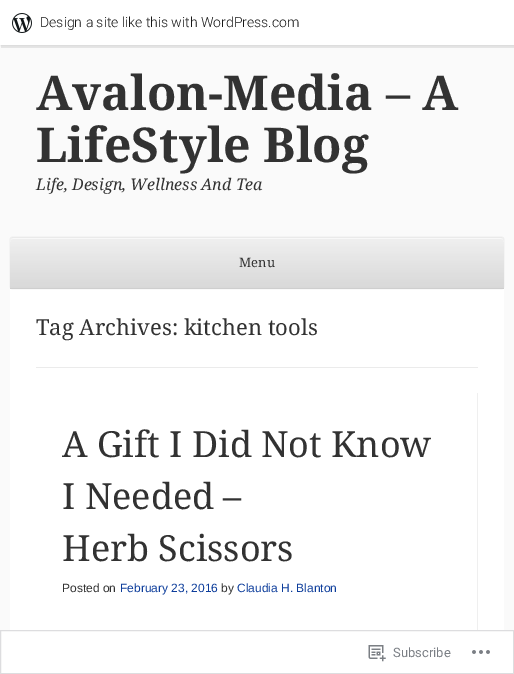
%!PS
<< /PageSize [514 674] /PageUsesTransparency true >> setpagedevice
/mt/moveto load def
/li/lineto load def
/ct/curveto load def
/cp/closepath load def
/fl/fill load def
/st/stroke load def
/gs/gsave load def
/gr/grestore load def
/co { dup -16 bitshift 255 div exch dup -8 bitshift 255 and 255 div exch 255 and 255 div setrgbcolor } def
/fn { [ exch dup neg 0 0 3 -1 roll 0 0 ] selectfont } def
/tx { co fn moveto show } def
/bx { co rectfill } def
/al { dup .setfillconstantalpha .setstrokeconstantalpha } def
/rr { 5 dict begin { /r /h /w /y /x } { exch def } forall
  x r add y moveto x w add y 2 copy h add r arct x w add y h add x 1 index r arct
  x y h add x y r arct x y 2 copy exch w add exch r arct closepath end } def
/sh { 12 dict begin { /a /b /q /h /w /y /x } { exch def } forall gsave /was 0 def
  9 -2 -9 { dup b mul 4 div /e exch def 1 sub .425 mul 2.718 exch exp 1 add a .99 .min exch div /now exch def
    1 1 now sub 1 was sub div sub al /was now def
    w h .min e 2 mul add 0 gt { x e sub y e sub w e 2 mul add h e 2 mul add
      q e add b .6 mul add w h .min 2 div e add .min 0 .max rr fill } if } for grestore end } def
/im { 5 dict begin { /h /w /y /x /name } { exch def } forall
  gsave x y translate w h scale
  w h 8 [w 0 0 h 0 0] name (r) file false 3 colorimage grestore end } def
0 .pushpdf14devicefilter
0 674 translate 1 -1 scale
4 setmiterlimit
0 0 514 674 16#FAFAFA bx
16#000000 co
0 1 514 45 0 1 .05 sh
0.08 al
1 45 mt 1 48 li 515 48 li 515 3 li 514 3 li 514 45 li cp fl
1 al
0 0 514 45 16#FFFFFF bx
(media/1.raw) 12 13 20 20 im
13 237 mt 501 237 li 502.5 237 504 238.5 504 240 ct 504 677 li 10 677 li 10 240 li 10 238.5 11.5 237 13 237 ct cp fl
16#000000 co
10 237 494 52 3 .5 .1 sh
16#F0F0F0 co
13 237 mt 501 237 li 502.5 237 504 238.5 504 240 ct 504 289 li 10 289 li 10 240 li 10 238.5 11.5 237 13 237 ct cp fl
0.8 al
gs 13 237 mt 501 237 li 502.5 237 504 238.5 504 240 ct 504 289 li 10 289 li 10 240 li 10 238.5 11.5 237 13 237 ct cp clip newpath
<< /ShadingType 2 /ColorSpace /DeviceRGB /Coords [257 237 257 289] /Extend [true true] /Function << /FunctionType 2 /Domain [0 1] /C0 [.941 .941 .941] /C1 [.824 .824 .824] /N 1 >> >> shfill gr
1 al
10 288 494 1 16#CECECE bx
0.8 al
16#FAFAFA co
13 239 mt 501 239 li 503 239 504 240 504 242 ct 503 238 li 502 237 li 13 237 li 10 237 10 240 10 242 ct 10 240 11 239 13 239 ct cp fl
1 al
16#EAEAEA co
13 238 mt 501 238 li 503 238 504 239 504 241 ct 504 239 503 237 501 237 ct 13 237 li 11 237 10 239 10 241 ct 10 239 11 238 13 238 ct cp fl
36 367 442 1 16#EBEBEB bx
gs
36 393 442 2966 rectclip
16#EFEFEF co
-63 294 mt 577 294 li 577 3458 li -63 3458 li cp 35 392 mt 477 392 li 477 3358 li 35 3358 li cp eofill
gr
0.98 al
16#FFFFFF co
.5 630.5 mt 513.5 630.5 li 513.5 673.5 li .5 673.5 li cp fl
1 al
16#DDDDDF co
.5 630.5 mt 513.5 630.5 li 513.5 673.5 li .5 673.5 li cp st
(media/2.raw) 368 645 18 17 im
(media/3.raw) 472 650 18 4 im
(Design a site like this with WordPress.com) 40 27 /Roboto-Light 14 16#171717 tx
(Avalon-Media – A) 36 110 /DroidSerif-Bold 48 16#323232 tx
(LifeStyle Blog) 36 162 /DroidSerif-Bold 48 16#323232 tx
(Life, Design, Wellness And Tea) 36 190 /DroidSerif-Italic 16 16#323232 tx
(Menu) 239 267 /DroidSerif-Regular 13 16#323232 tx
(Tag Archives: kitchen tools) 36 335 /DroidSerif-Regular 22 16#323232 tx
(A Gift I Did Not Know) 62 457 /DroidSerif-Regular 36 16#323232 tx
(I Needed –) 62 509 /DroidSerif-Regular 36 16#323232 tx
(Herb Scissors) 62 561 /DroidSerif-Regular 36 16#323232 tx
(Posted on) 62 592 /LiberationSans-Regular 12 16#323232 tx
(February 23, 2016) 120 592 /LiberationSans-Regular 12 16#0D3D9B tx
(by) 221 592 /LiberationSans-Regular 12 16#323232 tx
(Claudia H. Blanton) 237 592 /LiberationSans-Regular 12 16#0D3D9B tx
(Subscribe) 393 657 /Roboto-Regular 13 16#7B7F85 tx
.poppdf14devicefilter showpage
